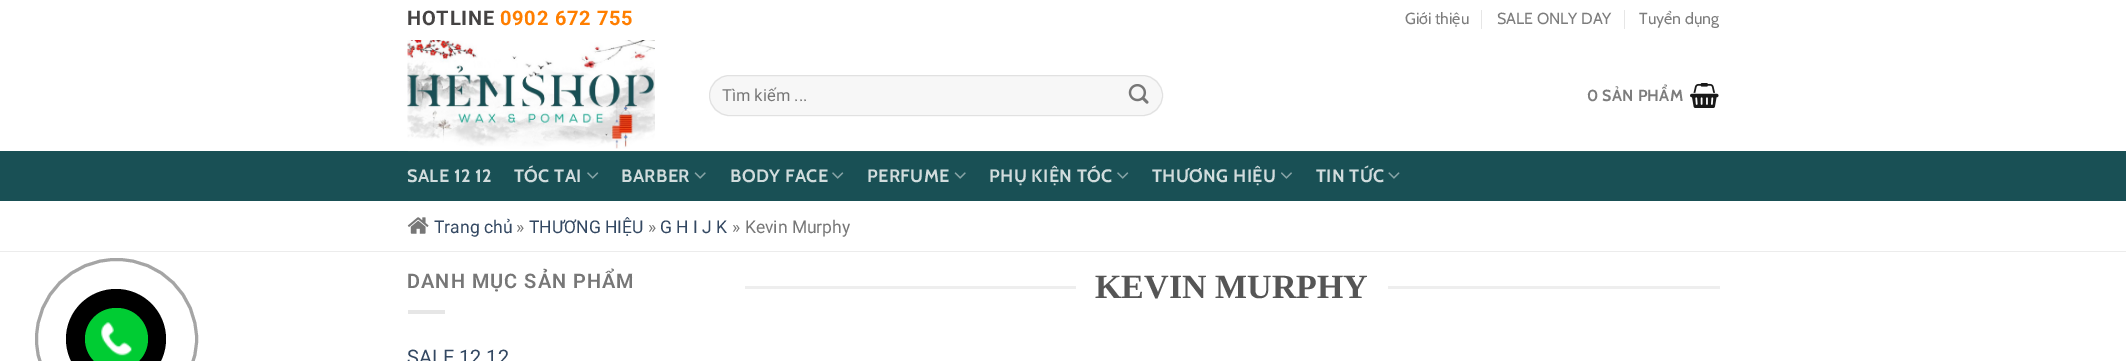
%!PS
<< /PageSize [2126 361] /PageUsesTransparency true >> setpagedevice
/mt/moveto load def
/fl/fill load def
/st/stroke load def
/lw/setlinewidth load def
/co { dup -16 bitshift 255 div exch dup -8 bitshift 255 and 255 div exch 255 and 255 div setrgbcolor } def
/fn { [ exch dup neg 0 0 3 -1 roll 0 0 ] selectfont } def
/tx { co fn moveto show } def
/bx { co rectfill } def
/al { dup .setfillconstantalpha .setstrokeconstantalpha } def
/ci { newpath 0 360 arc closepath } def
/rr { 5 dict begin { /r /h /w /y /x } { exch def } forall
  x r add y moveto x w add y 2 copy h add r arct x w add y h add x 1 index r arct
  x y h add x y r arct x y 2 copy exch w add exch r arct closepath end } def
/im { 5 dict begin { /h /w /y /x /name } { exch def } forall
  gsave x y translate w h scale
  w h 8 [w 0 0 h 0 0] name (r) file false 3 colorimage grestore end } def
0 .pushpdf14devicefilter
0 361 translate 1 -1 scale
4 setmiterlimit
0 0 2126 361 16#FFFFFF bx
16#A5A5A5 co
3 lw
36.5 259.5 160 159 79.5 rr st
16#000000 co
116 339 50 ci fl
16#00CC33 co
85 308 63 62 31 rr fl
(media/1.raw) 101 322 31 34 im
1481 10 1 19 16#E6E6E6 bx
1624 10 1 19 16#E6E6E6 bx
(media/2.raw) 407 40 248 109 im
16#F7F7F7 co
709 75 454 41 20.5 rr fl
0.09 al
16#000000 co
1 lw
709.5 75.5 453 40 20 rr st
1 al
(media/3.raw) 1128 84 21 20 im
(media/4.raw) 1690 83 29 25 im
0 151 2126 50 16#195055 bx
408 151 1312 1 16#225458 bx
(media/5.raw) 587 172 12 7 im
(media/6.raw) 694 172 12 7 im
(media/5.raw) 832 172 12 7 im
(media/6.raw) 954 172 12 7 im
(media/5.raw) 1117 172 12 7 im
(media/7.raw) 1281 172 11 7 im
(media/8.raw) 1388 172 12 7 im
0 251 2126 1 16#ECECEC bx
(media/9.raw) 407 217 22 17 im
408 310 37 4 16#E6E6E6 bx
745 286 331 3 16#EEEEEE bx
1388 286 332 3 16#EEEEEE bx
/Roboto-Bold 20 fn
16#454343 co
407 25 mt .75 0 (HOTLINE) ashow
16#FF7E00 co
500 25 mt .75 0 (0902 672 755) ashow
(Giới thiệu) 1405 24 /Cabin-Regular 16 16#7D7D7D tx
(SALE ONLY DAY) 1497 24 /Cabin-Regular 16 16#7D7D7D tx
(Tuyển dụng) 1639 24 /Cabin-Regular 16 16#7D7D7D tx
(Tìm kiếm ...) 722 101 /Roboto-Regular 16.5 16#777777 tx
/Cabin-Bold 16 fn
16#7D7D7D co
1587 101 mt .25 0 (0 SẢN PHẨM) ashow
/Cabin-Bold 18 fn
16#D1DCDD co
407 182 mt .4 0 (SALE 12 12) ashow
514 182 mt .4 0 (TÓC TAI) ashow
621 182 mt .4 0 (BARBER) ashow
730 182 mt .4 0 (BODY FACE) ashow
867 182 mt .4 0 (PERFUME) ashow
989 182 mt .4 0 (PHỤ KIỆN TÓC) ashow
1152 182 mt .4 0 (THƯƠNG HIỆU) ashow
1316 182 mt .4 0 (TIN TỨC) ashow
(Trang chủ) 434 233 /Roboto-Regular 17.5 16#334862 tx
(») 516 233 /Roboto-Regular 17.5 16#777777 tx
(THƯƠNG HIỆU) 529 233 /Roboto-Regular 17.5 16#334862 tx
(») 648 233 /Roboto-Regular 17.5 16#777777 tx
(G H I J K) 660 233 /Roboto-Regular 17.5 16#334862 tx
(» Kevin Murphy) 732 233 /Roboto-Regular 17.5 16#777777 tx
/Roboto-SemiBold 20 fn
407 288 mt 1 0 (DANH MỤC SẢN PHẨM) ashow
(SALE 12 12) 407 364 /Roboto-Regular 20 16#334862 tx
(KEVIN MURPHY) 1095 298 /LiberationSerif-Bold 34 16#555555 tx
.poppdf14devicefilter showpage
